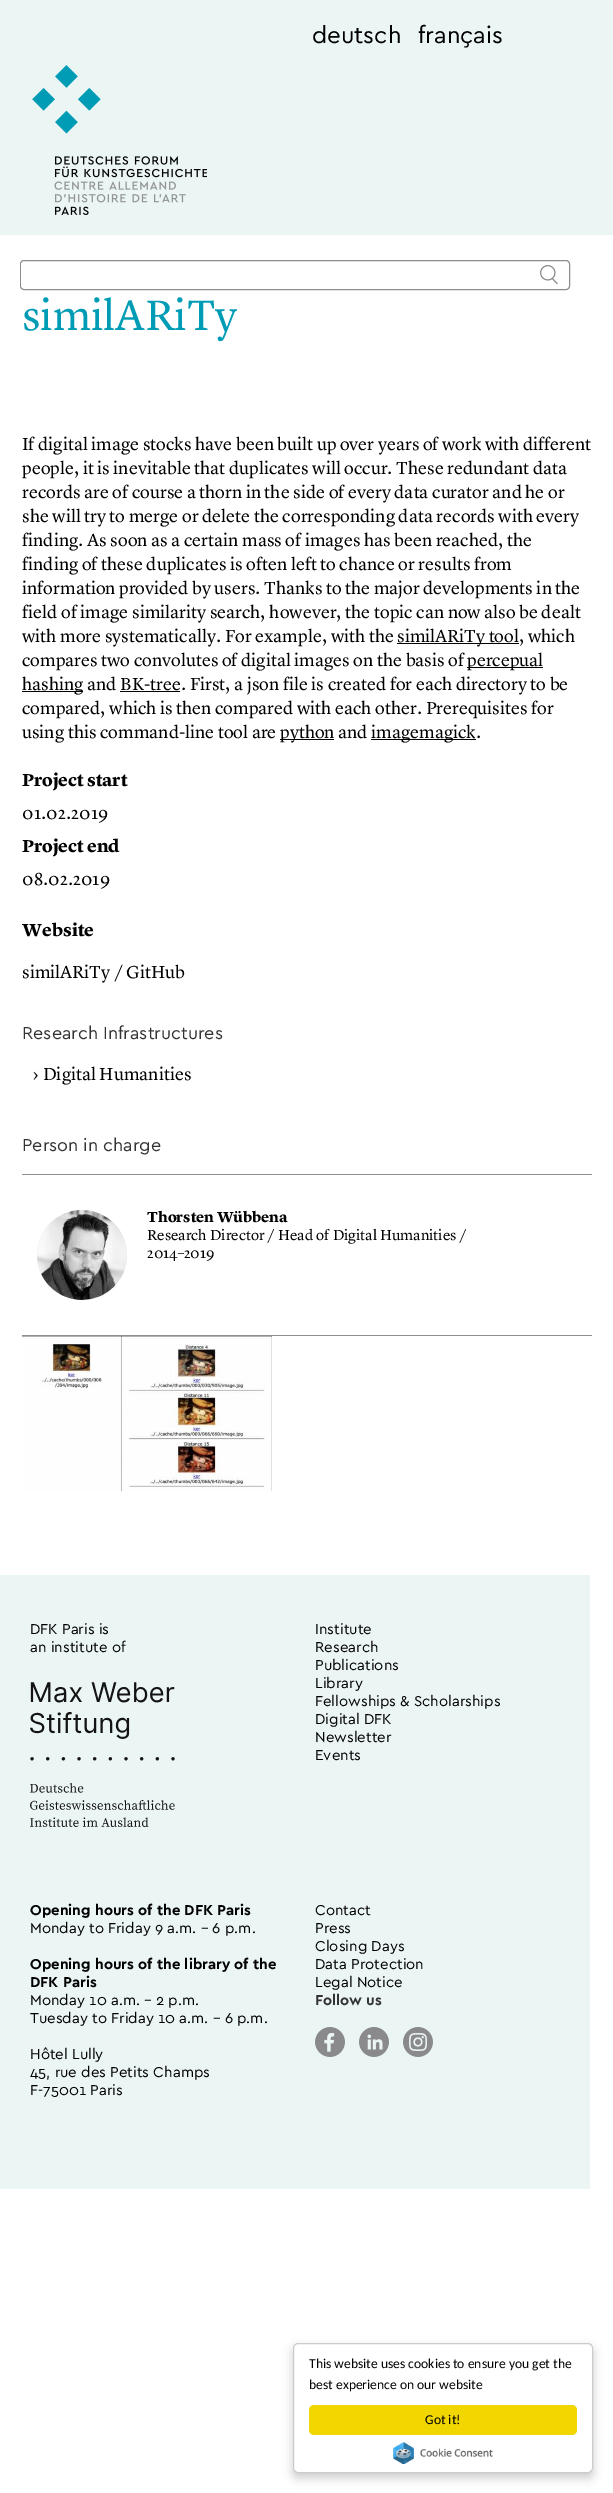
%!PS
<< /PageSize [613 2493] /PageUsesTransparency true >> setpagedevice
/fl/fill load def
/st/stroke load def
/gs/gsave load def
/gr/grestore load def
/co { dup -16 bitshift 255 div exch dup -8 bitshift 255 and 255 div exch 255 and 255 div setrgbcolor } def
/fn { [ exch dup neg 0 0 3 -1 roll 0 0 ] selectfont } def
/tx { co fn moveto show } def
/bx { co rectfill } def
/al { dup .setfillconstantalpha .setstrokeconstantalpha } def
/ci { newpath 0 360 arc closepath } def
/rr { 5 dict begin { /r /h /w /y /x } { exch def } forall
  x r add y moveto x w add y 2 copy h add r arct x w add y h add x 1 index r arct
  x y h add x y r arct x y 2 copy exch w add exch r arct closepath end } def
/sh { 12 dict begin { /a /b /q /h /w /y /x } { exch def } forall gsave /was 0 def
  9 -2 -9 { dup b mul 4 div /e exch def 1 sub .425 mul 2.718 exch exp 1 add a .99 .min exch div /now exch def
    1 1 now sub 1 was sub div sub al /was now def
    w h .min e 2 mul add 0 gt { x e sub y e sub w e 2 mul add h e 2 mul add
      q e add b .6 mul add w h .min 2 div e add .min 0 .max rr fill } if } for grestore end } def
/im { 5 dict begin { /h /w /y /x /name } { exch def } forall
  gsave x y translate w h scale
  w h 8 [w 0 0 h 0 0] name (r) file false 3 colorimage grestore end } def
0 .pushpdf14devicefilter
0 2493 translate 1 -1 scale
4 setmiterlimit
0 0 613 2493 16#FFFFFF bx
0 0 613 235 16#EBF5F4 bx
(media/1.raw) 32 65 175 150 im
16#8D8D8D co
20.5 260.5 549 29 3.5 rr st
21 263 1 24 16#FFFFFF bx
(media/2.raw) 540 265 18 20 im
397 643 122 1 16#000000 bx
467 667 76 1 16#000000 bx
22 691 61 1 16#000000 bx
120 691 60 1 16#000000 bx
280 739 54 1 16#000000 bx
371 739 105 1 16#000000 bx
22 1174 570 1 16#8D8D8D bx
22 1335 570 1 16#8D8D8D bx
16#D5E3D5 co
82 1255 45 ci fl
(media/3.raw) 37 1210 90 90 im
(media/4.raw) 22 1336 250 155 im
0 1575 590 614 16#EBF5F4 bx
(media/5.raw) 30 1682 145 145 im
(media/6.raw) 315 2027 30 30 im
(media/7.raw) 359 2027 30 30 im
(media/8.raw) 403 2027 30 30 im
16#000000 co
293 2348 300 130 5 5 .2 sh
16#FFFFFF co
293.5 2343.5 299 129 4.5 rr gs fl gr
16#CCCCCC co
st
16#F1D600 co
309 2405 268 30 5 rr fl
(media/9.raw) 393 2442 100 22 im
(deutsch) 312 43 /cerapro-Regular 24 16#000000 tx
(français) 418 43 /cerapro-Regular 24 16#000000 tx
(similARiTy) 22 330 /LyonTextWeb-Regular 44 16#009BB5 tx
(If digital image stocks have been built up over years of work with different) 22 450 /LyonTextWeb-Regular 18 16#000000 tx
(people, it is inevitable that duplicates will occur. These redundant data) 22 474 /LyonTextWeb-Regular 18 16#000000 tx
(records are of course a thorn in the side of every data curator and he or) 22 498 /LyonTextWeb-Regular 18 16#000000 tx
(she will try to merge or delete the corresponding data records with every) 22 522 /LyonTextWeb-Regular 18 16#000000 tx
(finding. As soon as a certain mass of images has been reached, the) 22 546 /LyonTextWeb-Regular 18 16#000000 tx
(finding of these duplicates is often left to chance or results from) 22 570 /LyonTextWeb-Regular 18 16#000000 tx
(information provided by users. Thanks to the major developments in the) 22 594 /LyonTextWeb-Regular 18 16#000000 tx
(field of image similarity search, however, the topic can now also be dealt) 22 618 /LyonTextWeb-Regular 18 16#000000 tx
(with more systematically. For example, with the) 22 642 /LyonTextWeb-Regular 18 16#000000 tx
(similARiTy tool, which) 397 642 /LyonTextWeb-Regular 18 16#000000 tx
(compares two convolutes of digital images on the basis of) 22 666 /LyonTextWeb-Regular 18 16#000000 tx
(percepual) 467 666 /LyonTextWeb-Regular 18 16#000000 tx
(hashing and BK-tree. First, a json file is created for each directory to be) 22 690 /LyonTextWeb-Regular 18 16#000000 tx
(compared, which is then compared with each other. Prerequisites for) 22 714 /LyonTextWeb-Regular 18 16#000000 tx
(using this command-line tool are) 22 738 /LyonTextWeb-Regular 18 16#000000 tx
(python and) 280 738 /LyonTextWeb-Regular 18 16#000000 tx
(imagemagick.) 371 738 /LyonTextWeb-Regular 18 16#000000 tx
(Project start) 22 786 /LyonTextWeb-Bold 18 16#000000 tx
(01.02.2019) 22 819 /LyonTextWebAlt-Regular 18 16#000000 tx
(Project end) 22 852 /LyonTextWeb-Bold 18 16#000000 tx
(08.02.2019) 22 885 /LyonTextWebAlt-Regular 18 16#000000 tx
(Website) 22 936 /LyonTextWeb-Bold 18 16#000000 tx
(similARiTy / GitHub) 22 978 /LyonTextWeb-Regular 18 16#000000 tx
(Research Infrastructures) 22 1039 /cerapro-Regular 18 16#333333 tx
(› Digital Humanities) 32 1080 /LyonTextWeb-Regular 18 16#000000 tx
(Person in charge) 22 1151 /cerapro-Regular 18 16#333333 tx
(Thorsten Wübbena) 147 1222 /LyonTextWeb-Bold 15 16#000000 tx
(Research Director / Head of Digital Humanities /) 147 1240 /LyonTextWeb-Regular 15 16#000000 tx
(2014–2019) 147 1258 /LyonTextWebAlt-Regular 15 16#000000 tx
(DFK Paris is) 30 1634 /cerapro-Regular 15 16#000000 tx
(an institute of) 30 1652 /cerapro-Regular 15 16#000000 tx
(Institute) 315 1634 /cerapro-Regular 15 16#000000 tx
(Research) 315 1652 /cerapro-Regular 15 16#000000 tx
(Publications) 315 1670 /cerapro-Regular 15 16#000000 tx
(Library) 315 1688 /cerapro-Regular 15 16#000000 tx
(Fellowships & Scholarships) 315 1706 /cerapro-Regular 15 16#000000 tx
(Digital DFK) 315 1724 /cerapro-Regular 15 16#000000 tx
(Newsletter) 315 1742 /cerapro-Regular 15 16#000000 tx
(Events) 315 1760 /cerapro-Regular 15 16#000000 tx
(Opening hours of the DFK Paris) 30 1915 /cerapro-Bold 15 16#000000 tx
(Monday to Friday 9 a.m. – 6 p.m.) 30 1933 /cerapro-Regular 15 16#000000 tx
(Opening hours of the library of the) 30 1969 /cerapro-Bold 15 16#000000 tx
(DFK Paris) 30 1987 /cerapro-Bold 15 16#000000 tx
(Monday 10 a.m. – 2 p.m.) 30 2005 /cerapro-Regular 15 16#000000 tx
(Tuesday to Friday 10 a.m. – 6 p.m.) 30 2023 /cerapro-Regular 15 16#000000 tx
(Hôtel Lully) 30 2059 /cerapro-Regular 15 16#000000 tx
(45, rue des Petits Champs) 30 2077 /cerapro-Regular 15 16#000000 tx
(F-75001 Paris) 30 2095 /cerapro-Regular 15 16#000000 tx
(Contact) 315 1915 /cerapro-Regular 15 16#000000 tx
(Press) 315 1933 /cerapro-Regular 15 16#000000 tx
(Closing Days) 315 1951 /cerapro-Regular 15 16#000000 tx
(Data Protection) 315 1969 /cerapro-Regular 15 16#000000 tx
(Legal Notice) 315 1987 /cerapro-Regular 15 16#000000 tx
(Follow us) 315 2005 /cerapro-Bold 15 16#333333 tx
(This website uses cookies to ensure you get the) 309 2368 /Carlito-Regular 13.6 16#000000 tx
(best experience on our website) 309 2389 /Carlito-Regular 13.6 16#000000 tx
(Got it!) 425 2424 /Carlito-Regular 13.6 16#000000 tx
.poppdf14devicefilter showpage
